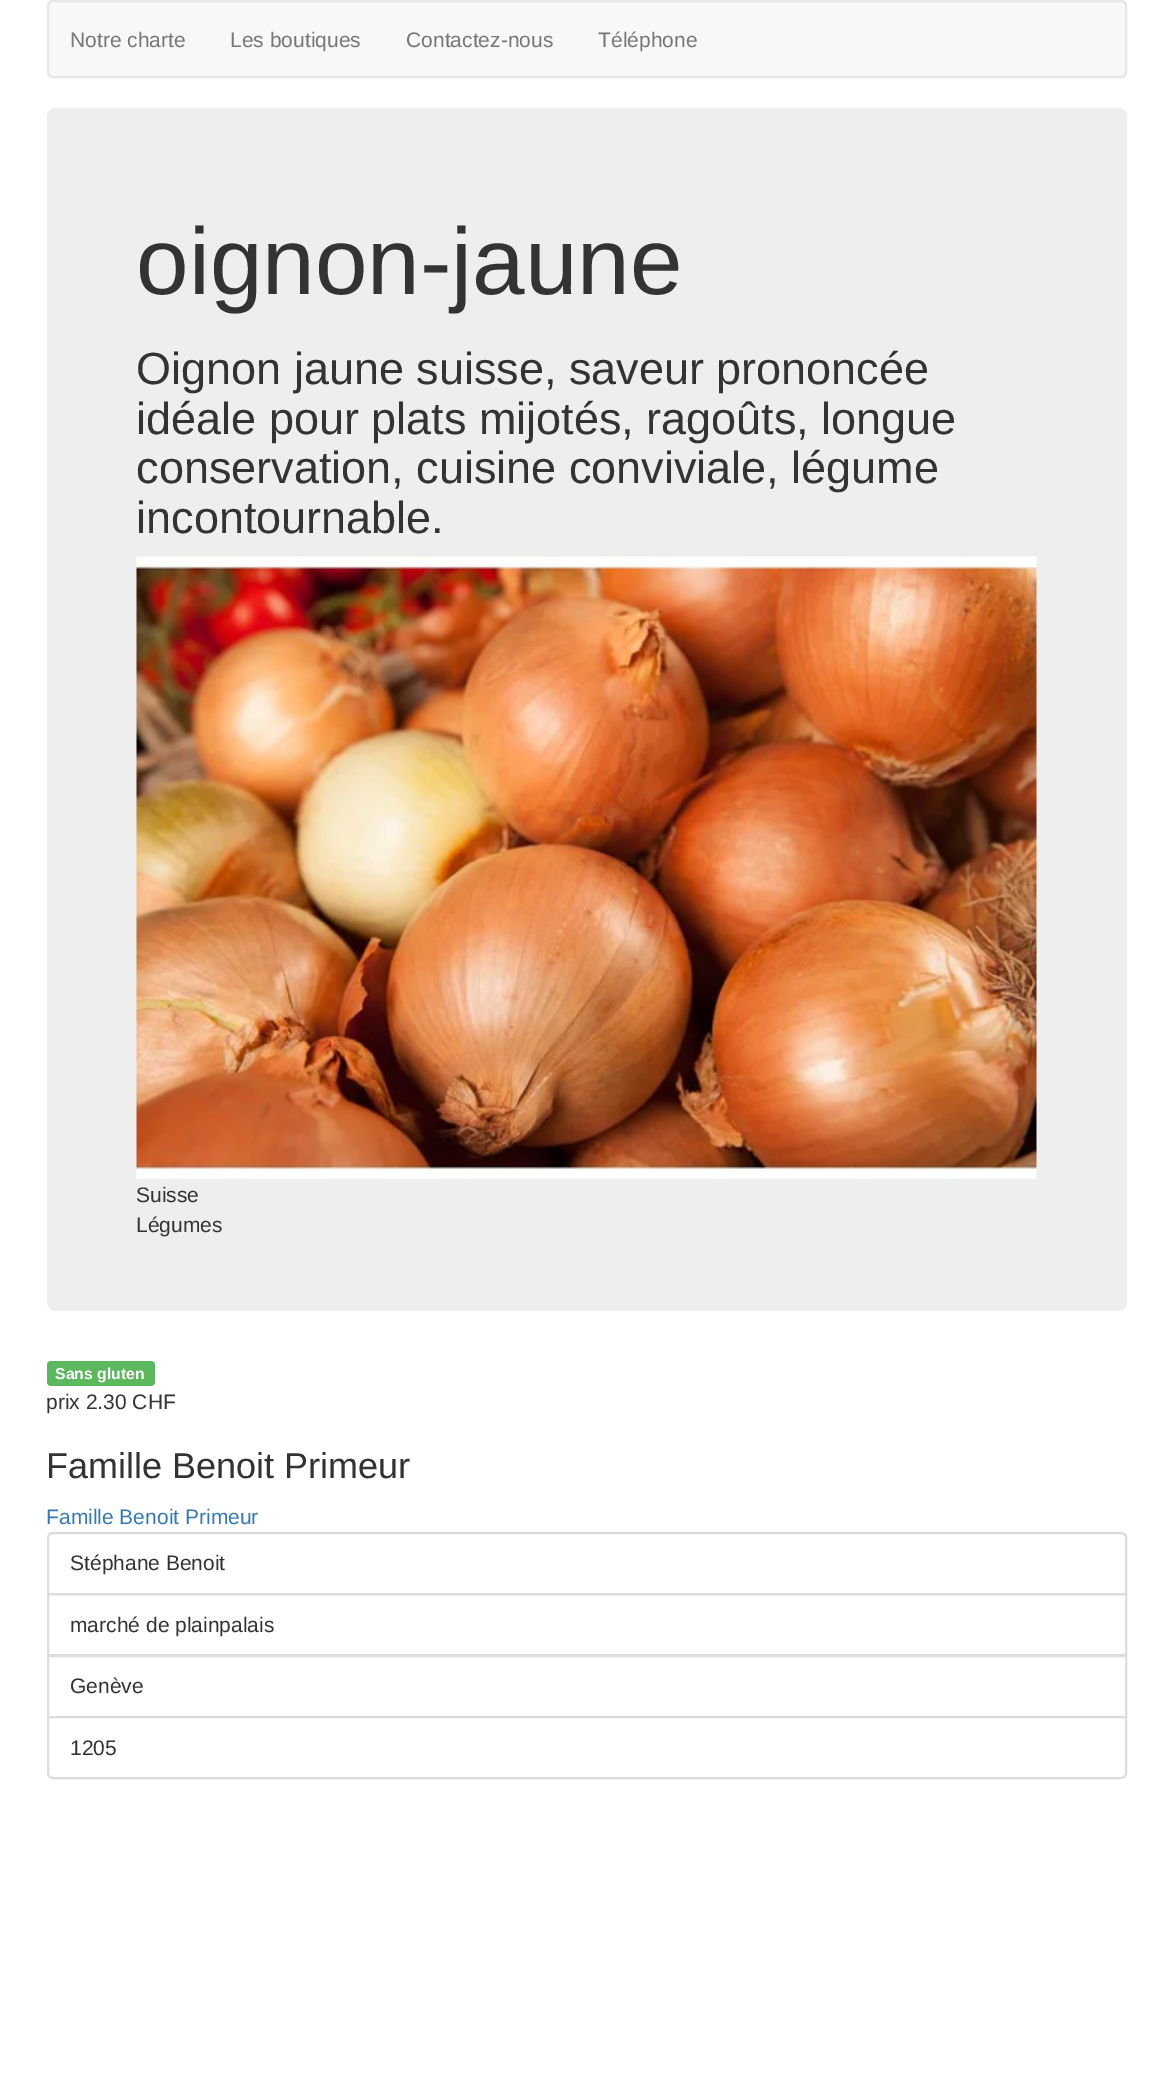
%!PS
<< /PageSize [1171 2077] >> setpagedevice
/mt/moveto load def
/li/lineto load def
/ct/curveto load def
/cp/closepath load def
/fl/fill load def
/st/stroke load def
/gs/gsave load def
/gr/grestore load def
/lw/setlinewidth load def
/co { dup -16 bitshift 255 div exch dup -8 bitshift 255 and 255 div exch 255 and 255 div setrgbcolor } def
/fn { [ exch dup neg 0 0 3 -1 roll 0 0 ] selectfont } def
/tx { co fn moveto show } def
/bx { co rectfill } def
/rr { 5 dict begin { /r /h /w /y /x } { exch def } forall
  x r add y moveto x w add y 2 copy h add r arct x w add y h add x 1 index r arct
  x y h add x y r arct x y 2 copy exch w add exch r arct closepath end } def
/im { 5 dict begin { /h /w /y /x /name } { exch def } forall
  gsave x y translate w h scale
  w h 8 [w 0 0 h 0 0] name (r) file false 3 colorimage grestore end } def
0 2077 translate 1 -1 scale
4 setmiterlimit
0 0 1171 2077 16#FFFFFF bx
16#F8F8F8 co
48 1 1078 76 5 rr gs fl gr
16#E7E7E7 co
2 lw
st
16#EEEEEE co
47 108 1080 1203 9 rr fl
(media/1.raw) 136 556 901 623 im
16#5CB85C co
47 1361 108 25 4 rr fl
16#DDDDDD co
53 1533 mt 1121 1533 li 1124 1533 1126 1535 1126 1538 ct 1126 1594 li 48 1594 li 48 1538 li 48 1535 50 1533 53 1533 ct cp st
48 1594 1078 61 rectstroke
48 1656 1078 61 rectstroke
16#FFFFFF co
48 1717 mt 1126 1717 li 1126 1773 li 1126 1776 1124 1778 1121 1778 ct 53 1778 li 50 1778 48 1776 48 1773 ct cp gs fl gr
16#DDDDDD co
st
(Notre charte) 70 47 /LiberationSans-Regular 21 16#777777 tx
(Les boutiques) 230 47 /LiberationSans-Regular 21 16#777777 tx
(Contactez-nous) 406 47 /LiberationSans-Regular 21 16#777777 tx
(Téléphone) 598 47 /LiberationSans-Regular 21 16#777777 tx
(oignon-jaune) 136 294 /LiberationSans-Regular 94.5 16#333333 tx
(Oignon jaune suisse, saveur prononcée) 136 384 /LiberationSans-Regular 45 16#333333 tx
(idéale pour plats mijotés, ragoûts, longue) 136 434 /LiberationSans-Regular 45 16#333333 tx
(conservation, cuisine conviviale, légume) 136 483 /LiberationSans-Regular 45 16#333333 tx
(incontournable.) 136 533 /LiberationSans-Regular 45 16#333333 tx
(Suisse) 136 1202 /LiberationSans-Regular 21 16#333333 tx
(Légumes) 136 1232 /LiberationSans-Regular 21 16#333333 tx
(Sans gluten) 55 1379 /LiberationSans-Bold 15.75 16#FFFFFF tx
(prix 2.30 CHF) 46 1409 /LiberationSans-Regular 21 16#333333 tx
(Famille Benoit Primeur) 46 1478 /LiberationSans-Regular 36 16#333333 tx
(Famille Benoit Primeur) 46 1524 /LiberationSans-Regular 21 16#337AB7 tx
(Stéphane Benoit) 70 1570 /LiberationSans-Regular 21 16#333333 tx
(marché de plainpalais) 70 1632 /LiberationSans-Regular 21 16#333333 tx
(Genève) 70 1693 /LiberationSans-Regular 21 16#333333 tx
(1205) 70 1755 /LiberationSans-Regular 21 16#333333 tx
showpage
